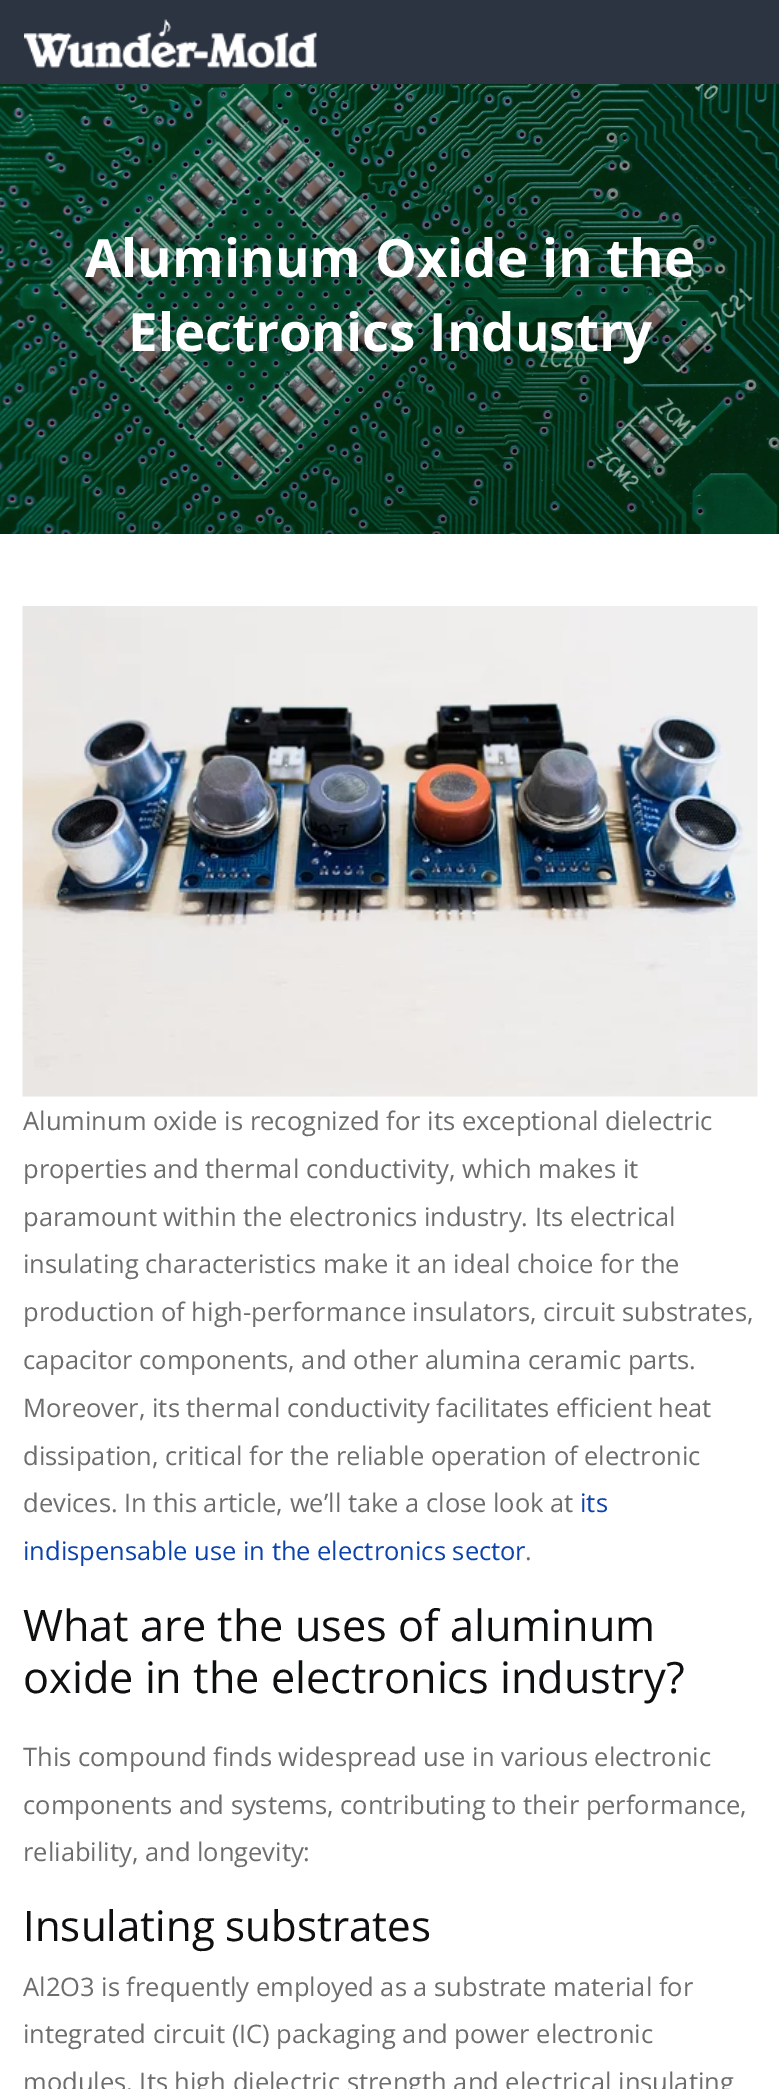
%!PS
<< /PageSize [779 2089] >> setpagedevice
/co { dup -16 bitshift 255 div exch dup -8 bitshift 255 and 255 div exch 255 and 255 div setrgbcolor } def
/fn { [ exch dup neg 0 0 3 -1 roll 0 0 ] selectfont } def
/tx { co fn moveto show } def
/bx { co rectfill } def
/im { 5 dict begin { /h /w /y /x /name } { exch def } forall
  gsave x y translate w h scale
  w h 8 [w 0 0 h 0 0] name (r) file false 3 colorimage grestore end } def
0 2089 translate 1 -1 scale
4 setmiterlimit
0 0 779 2089 16#FFFFFF bx
0 0 779 84 16#2C3442 bx
(media/1.raw) 24 19 293 49 im
(media/2.raw) 0 84 779 450 im
(media/3.raw) 22 606 736 491 im
(Aluminum Oxide in the) 85 277 /OpenSans-Bold 52.75 16#FFFFFF tx
(Electronics Industry) 128 351 /OpenSans-Bold 52.75 16#FFFFFF tx
(Aluminum oxide is recognized for its exceptional dielectric) 23 1130 /OpenSans-Regular 25.5 16#6D6D6D tx
(properties and thermal conductivity, which makes it) 23 1178 /OpenSans-Regular 25.5 16#6D6D6D tx
(paramount within the electronics industry. Its electrical) 23 1226 /OpenSans-Regular 25.5 16#6D6D6D tx
(insulating characteristics make it an ideal choice for the) 23 1273 /OpenSans-Regular 25.5 16#6D6D6D tx
(production of high-performance insulators, circuit substrates,) 23 1321 /OpenSans-Regular 25.5 16#6D6D6D tx
(capacitor components, and other alumina ceramic parts.) 23 1369 /OpenSans-Regular 25.5 16#6D6D6D tx
(Moreover, its thermal conductivity facilitates efficient heat) 23 1417 /OpenSans-Regular 25.5 16#6D6D6D tx
(dissipation, critical for the reliable operation of electronic) 23 1465 /OpenSans-Regular 25.5 16#6D6D6D tx
(devices. In this article, we’ll take a close look at) 23 1512 /OpenSans-Regular 25.5 16#6D6D6D tx
(its) 580 1512 /OpenSans-Regular 25.5 16#0C42AC tx
(indispensable use in the electronics sector) 23 1560 /OpenSans-Regular 25.5 16#0C42AC tx
(.) 525 1560 /OpenSans-Regular 25.5 16#6D6D6D tx
(What are the uses of aluminum) 23 1641 /OpenSans-Regular 43.25 16#0E0F10 tx
(oxide in the electronics industry?) 23 1693 /OpenSans-Regular 43.25 16#0E0F10 tx
(This compound finds widespread use in various electronic) 23 1766 /OpenSans-Regular 25.5 16#6D6D6D tx
(components and systems, contributing to their performance,) 23 1814 /OpenSans-Regular 25.5 16#6D6D6D tx
(reliability, and longevity:) 23 1861 /OpenSans-Regular 25.5 16#6D6D6D tx
(Insulating substrates) 23 1941 /OpenSans-Regular 42 16#0E0F10 tx
(Al2O3 is frequently employed as a substrate material for) 23 1996 /OpenSans-Regular 25.5 16#6D6D6D tx
(integrated circuit \(IC\) packaging and power electronic) 23 2043 /OpenSans-Regular 25.5 16#6D6D6D tx
(modules. Its high dielectric strength and electrical insulating) 23 2091 /OpenSans-Regular 25.5 16#6D6D6D tx
showpage
